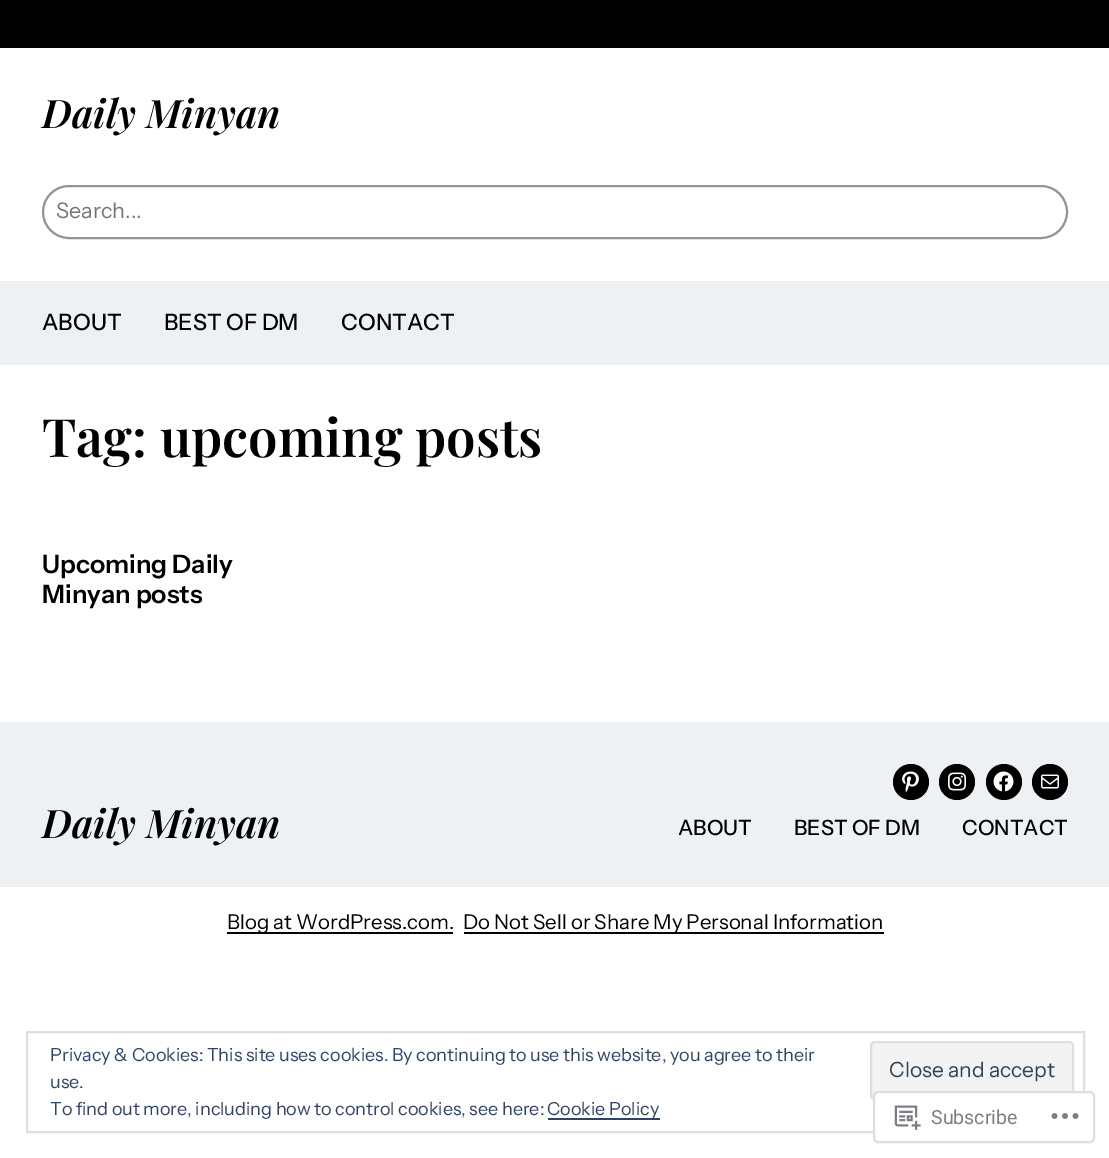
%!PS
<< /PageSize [1109 1158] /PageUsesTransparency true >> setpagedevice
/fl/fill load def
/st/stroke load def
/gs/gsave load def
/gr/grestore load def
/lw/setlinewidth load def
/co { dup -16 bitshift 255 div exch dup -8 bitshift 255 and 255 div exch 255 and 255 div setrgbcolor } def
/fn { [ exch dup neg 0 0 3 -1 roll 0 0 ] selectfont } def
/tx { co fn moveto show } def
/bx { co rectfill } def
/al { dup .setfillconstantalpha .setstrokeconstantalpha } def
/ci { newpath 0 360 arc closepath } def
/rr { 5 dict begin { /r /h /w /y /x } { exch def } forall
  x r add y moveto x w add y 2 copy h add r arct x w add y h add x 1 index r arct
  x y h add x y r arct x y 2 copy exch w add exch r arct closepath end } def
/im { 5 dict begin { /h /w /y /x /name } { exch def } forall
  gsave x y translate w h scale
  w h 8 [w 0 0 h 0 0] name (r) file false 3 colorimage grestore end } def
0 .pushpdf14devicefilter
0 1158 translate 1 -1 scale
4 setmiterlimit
0 0 1109 1158 16#FFFFFF bx
0 0 1109 48 16#000000 bx
16#949494 co
2 lw
43 186 1024 52 26 rr st
0 281 1109 84 16#EDF1F4 bx
0 722 1109 165 16#EDF1F4 bx
16#000000 co
911 782 18 ci fl
(media/1.raw) 902 771 17 22 im
957 782 18 ci fl
(media/2.raw) 948 772 18 19 im
1004 782 18 ci fl
(media/3.raw) 993 771 21 21 im
1050 782 18 ci fl
(media/4.raw) 1041 774 18 15 im
227 932 226 2 16#000000 bx
464 932 420 2 16#000000 bx
16#DEDEDE co
27 1032 1057 100 rectstroke
16#F3F3F3 co
871 1042 202 57 4 rr gs fl gr
16#DEDEDE co
st
548 1118 112 2 16#2E4467 bx
0.98 al
16#FFFFFF co
873 1091 222 52 5 rr fl
16#DCDCDE co
874 1092 220 50 4 rr st
1 al
(media/5.raw) 894 1105 27 25 im
(media/6.raw) 1051 1113 28 6 im
(Daily Minyan) 42 128 /PlayfairDisplay-SemiBoldItalic 39.25 16#000000 tx
(Search...) 56 218 /InstrumentSans-Regular 21.5 16#757575 tx
(ABOUT) 42 330 /InstrumentSans-Medium 22.5 16#000000 tx
(BEST OF DM) 164 330 /InstrumentSans-Medium 22.5 16#000000 tx
(CONTACT) 341 330 /InstrumentSans-Medium 22.5 16#000000 tx
(Tag: upcoming posts) 42 457 /PlayfairDisplay-SemiBold 52.75 16#000000 tx
(Upcoming Daily) 42 573 /InstrumentSans-SemiBold 25.5 16#000000 tx
(Minyan posts) 42 603 /InstrumentSans-SemiBold 25.5 16#000000 tx
(Daily Minyan) 42 838 /PlayfairDisplay-SemiBoldItalic 39.25 16#000000 tx
(ABOUT) 678 835 /InstrumentSans-Medium 21 16#000000 tx
(BEST OF DM) 794 835 /InstrumentSans-Medium 21 16#000000 tx
(CONTACT) 962 835 /InstrumentSans-Medium 21 16#000000 tx
(Blog at WordPress.com.) 227 929 /InstrumentSans-Regular 20.4 16#000000 tx
(Do Not Sell or Share My Personal Information) 463 929 /InstrumentSans-Regular 20.4 16#000000 tx
(Privacy & Cookies: This site uses cookies. By continuing to use this website, you agree to their) 50 1061 /InstrumentSans-Regular 18 16#2E4467 tx
(Close and accept) 889 1077 /InstrumentSans-Regular 21 16#2E4453 tx
(use.) 50 1088 /InstrumentSans-Regular 18 16#2E4467 tx
(To find out more, including how to control cookies, see here:) 50 1115 /InstrumentSans-Regular 18 16#2E4467 tx
(Cookie Policy) 547 1115 /InstrumentSans-Regular 18 16#2E4467 tx
(Subscribe) 931 1124 /Roboto-Regular 19.5 16#7B7F85 tx
.poppdf14devicefilter showpage
